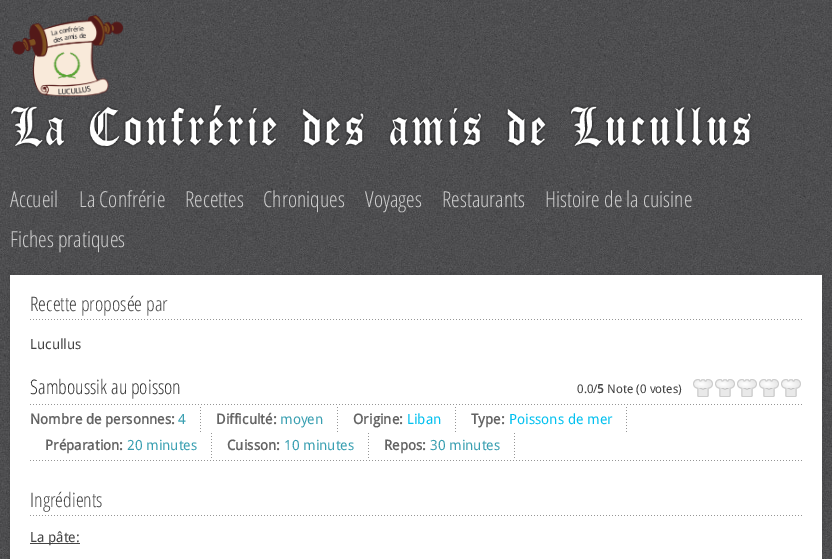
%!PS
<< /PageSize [832 559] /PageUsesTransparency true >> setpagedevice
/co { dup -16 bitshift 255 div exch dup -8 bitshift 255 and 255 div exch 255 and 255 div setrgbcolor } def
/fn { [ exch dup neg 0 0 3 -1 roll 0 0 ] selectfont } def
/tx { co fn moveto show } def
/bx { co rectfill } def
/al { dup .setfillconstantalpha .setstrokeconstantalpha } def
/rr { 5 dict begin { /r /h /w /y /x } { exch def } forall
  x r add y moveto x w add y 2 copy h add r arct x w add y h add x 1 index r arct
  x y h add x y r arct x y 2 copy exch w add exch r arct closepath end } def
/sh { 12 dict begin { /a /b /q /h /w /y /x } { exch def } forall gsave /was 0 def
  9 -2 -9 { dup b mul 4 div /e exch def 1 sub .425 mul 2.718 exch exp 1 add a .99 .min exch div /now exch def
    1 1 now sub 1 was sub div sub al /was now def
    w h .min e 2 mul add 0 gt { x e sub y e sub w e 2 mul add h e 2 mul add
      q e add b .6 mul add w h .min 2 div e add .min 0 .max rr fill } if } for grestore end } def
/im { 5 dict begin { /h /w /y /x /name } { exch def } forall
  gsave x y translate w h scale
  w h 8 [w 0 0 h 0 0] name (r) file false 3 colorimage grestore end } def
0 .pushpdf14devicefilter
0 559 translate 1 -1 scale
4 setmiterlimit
0 0 832 559 16#FFFFFF bx
(media/1.raw) 0 0 832 559 im
(media/2.raw) 12 15 111 82 im
(media/3.raw) 10 104 743 44 im
16#000000 co
10 275 812 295 0 3.5 .1 sh
10 275 812 284 16#FFFFFF bx
(media/4.raw) 30 319 772 1 im
(media/4.raw) 30 404 772 1 im
(media/5.raw) 693 379 108 18 im
(media/4.raw) 30 460 772 1 im
(media/6.raw) 200 407 1 25 im
(media/6.raw) 337 407 1 25 im
(media/6.raw) 455 407 1 25 im
(media/6.raw) 626 407 1 25 im
(media/6.raw) 211 433 1 25 im
(media/6.raw) 368 433 1 25 im
(media/6.raw) 514 433 1 25 im
(media/4.raw) 30 515 772 1 im
30 543 50 1 16#434343 bx
(Accueil) 10 207 /OpenSans-Light 22 16#CCCCCC tx
(La Confrérie) 79 207 /OpenSans-Light 22 16#CCCCCC tx
(Recettes) 185 207 /OpenSans-Light 22 16#CCCCCC tx
(Chroniques) 263 207 /OpenSans-Light 22 16#CCCCCC tx
(Voyages) 365 207 /OpenSans-Light 22 16#CCCCCC tx
(Restaurants) 442 207 /OpenSans-Light 22 16#CCCCCC tx
(Histoire de la cuisine) 545 207 /OpenSans-Light 22 16#CCCCCC tx
(Fiches pratiques) 10 247 /OpenSans-Light 22 16#CCCCCC tx
(Recette proposée par) 30 311 /OpenSans-Light 20 16#434343 tx
(Lucullus) 30 349 /DroidSans-Regular 14 16#434343 tx
(Samboussik au poisson) 30 394 /OpenSans-Light 20 16#323232 tx
(0.0/) 577 393 /DroidSans-Regular 12 16#434343 tx
(5) 597 393 /DroidSans-Bold 12 16#434343 tx
(Note \(0 votes\)) 607 393 /DroidSans-Regular 12 16#434343 tx
(Nombre de personnes:) 30 424 /DroidSans-Bold 14 16#646464 tx
(4) 178 424 /DroidSans-Regular 14 16#399FB1 tx
(Difficulté:) 216 424 /DroidSans-Bold 14 16#646464 tx
(moyen) 280 424 /DroidSans-Regular 14 16#399FB1 tx
(Origine:) 353 424 /DroidSans-Bold 14 16#646464 tx
(Liban) 407 424 /DroidSans-Regular 14 16#02C0EF tx
(Type:) 471 424 /DroidSans-Bold 14 16#646464 tx
(Poissons de mer) 509 424 /DroidSans-Regular 14 16#02C0EF tx
(Préparation:) 45 450 /DroidSans-Bold 14 16#646464 tx
(20 minutes) 127 450 /DroidSans-Regular 14 16#399FB1 tx
(Cuisson:) 227 450 /DroidSans-Bold 14 16#646464 tx
(10 minutes) 284 450 /DroidSans-Regular 14 16#399FB1 tx
(Repos:) 384 450 /DroidSans-Bold 14 16#646464 tx
(30 minutes) 430 450 /DroidSans-Regular 14 16#399FB1 tx
(Ingrédients) 30 507 /OpenSans-Light 20 16#434343 tx
(La pâte:) 30 542 /DroidSans-Regular 14 16#434343 tx
.poppdf14devicefilter showpage
